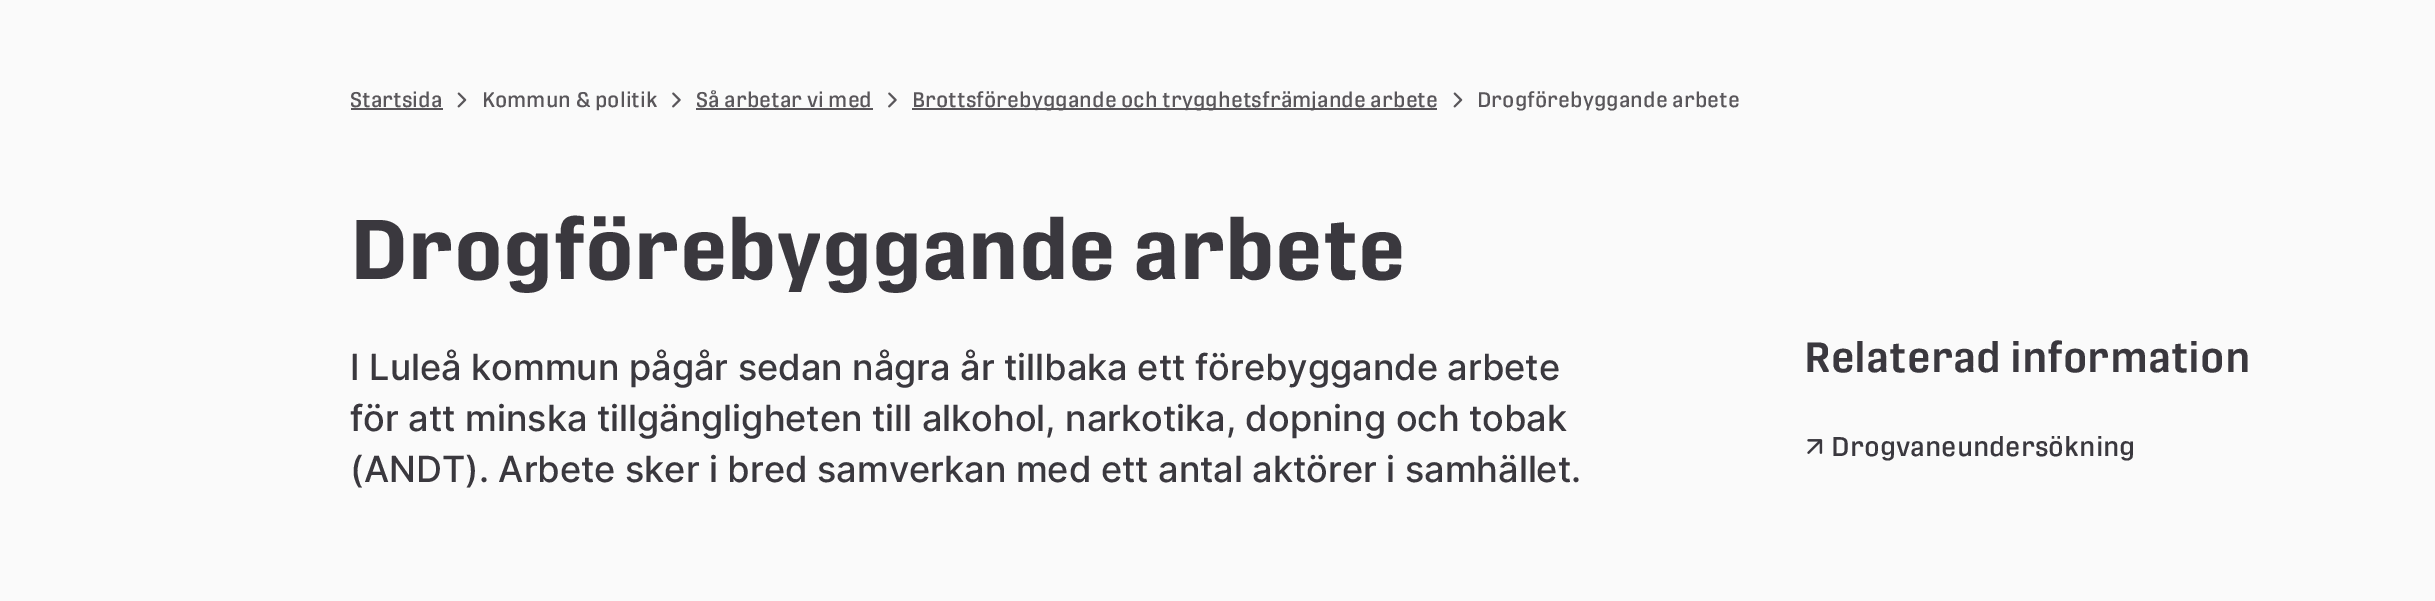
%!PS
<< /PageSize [2435 601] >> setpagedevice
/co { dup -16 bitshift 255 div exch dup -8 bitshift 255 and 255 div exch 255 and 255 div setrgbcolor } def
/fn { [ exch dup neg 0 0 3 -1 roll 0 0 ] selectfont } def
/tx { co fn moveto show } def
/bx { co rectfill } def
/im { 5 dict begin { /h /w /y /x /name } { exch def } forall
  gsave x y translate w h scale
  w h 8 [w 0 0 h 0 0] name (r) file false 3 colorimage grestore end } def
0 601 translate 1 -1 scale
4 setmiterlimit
0 0 2435 601 16#FAFAFA bx
351 108 92 2 16#59565A bx
(media/1.raw) 457 92 10 16 im
(media/2.raw) 672 92 9 16 im
696 108 177 2 16#59565A bx
(media/2.raw) 888 92 9 16 im
912 108 525 2 16#59565A bx
(media/1.raw) 1453 92 10 16 im
(media/3.raw) 1807 439 16 15 im
(Startsida) 350 107 /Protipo-Medium 21 16#59565A tx
(Kommun & politik) 482 107 /Protipo-Medium 21 16#59565A tx
(Så arbetar vi med) 696 107 /Protipo-Medium 21 16#59565A tx
(Brottsförebyggande och trygghetsfrämjande arbete) 912 107 /Protipo-Medium 21 16#59565A tx
(Drogförebyggande arbete) 1477 107 /Protipo-Medium 21 16#59565A tx
(Drogförebyggande arbete) 350 279 /Protipo-Bold 84 16#3A383E tx
(I Luleå kommun pågår sedan några år tillbaka ett förebyggande arbete) 350 380 /Inter-Medium 36 16#3A383E tx
(för att minska tillgängligheten till alkohol, narkotika, dopning och tobak) 350 431 /Inter-Medium 36 16#3A383E tx
(\(ANDT\). Arbete sker i bred samverkan med ett antal aktörer i samhället.) 350 482 /Inter-Medium 36 16#3A383E tx
(Relaterad information) 1804 372 /Protipo-SemiBold 42 16#3A383E tx
(Drogvaneundersökning) 1831 456 /Protipo-Medium 27 16#3A383E tx
showpage
